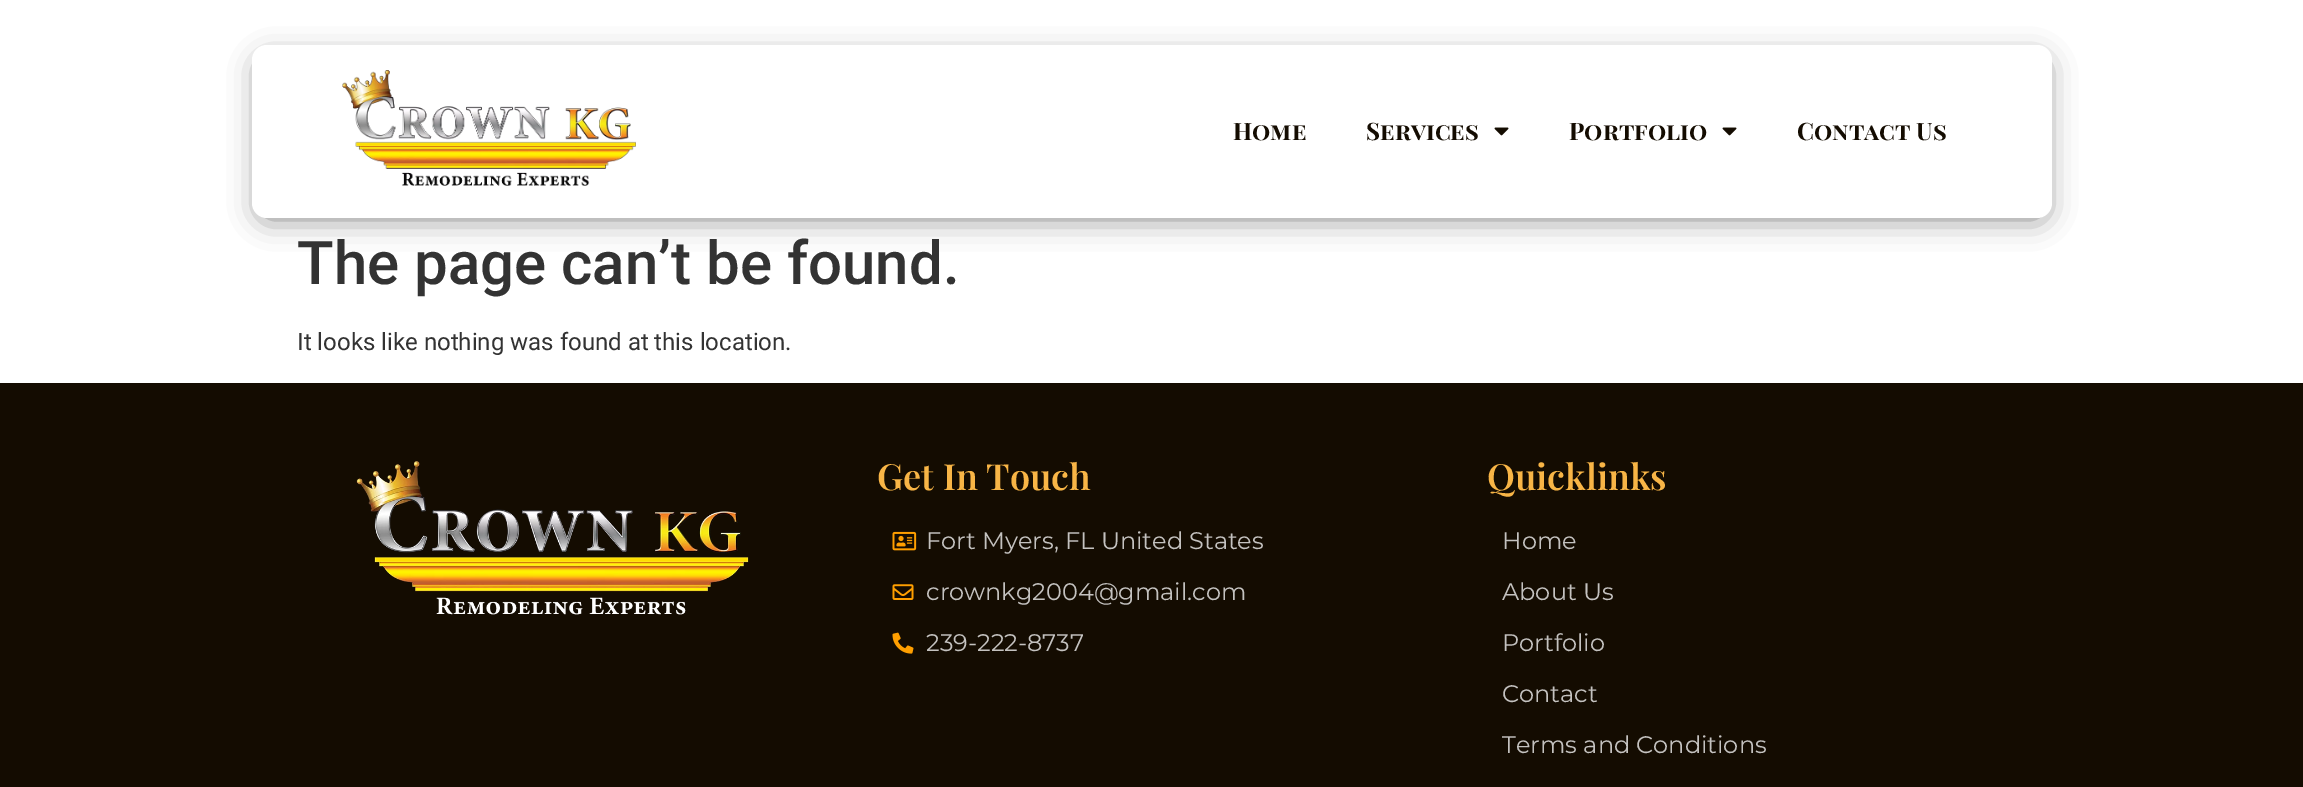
%!PS
<< /PageSize [2303 787] /PageUsesTransparency true >> setpagedevice
/fl/fill load def
/co { dup -16 bitshift 255 div exch dup -8 bitshift 255 and 255 div exch 255 and 255 div setrgbcolor } def
/fn { [ exch dup neg 0 0 3 -1 roll 0 0 ] selectfont } def
/tx { co fn moveto show } def
/bx { co rectfill } def
/al { dup .setfillconstantalpha .setstrokeconstantalpha } def
/rr { 5 dict begin { /r /h /w /y /x } { exch def } forall
  x r add y moveto x w add y 2 copy h add r arct x w add y h add x 1 index r arct
  x y h add x y r arct x y 2 copy exch w add exch r arct closepath end } def
/sh { 12 dict begin { /a /b /q /h /w /y /x } { exch def } forall gsave /was 0 def
  9 -2 -9 { dup b mul 4 div /e exch def 1 sub .425 mul 2.718 exch exp 1 add a .99 .min exch div /now exch def
    1 1 now sub 1 was sub div sub al /was now def
    w h .min e 2 mul add 0 gt { x e sub y e sub w e 2 mul add h e 2 mul add
      q e add b .6 mul add w h .min 2 div e add .min 0 .max rr fill } if } for grestore end } def
/im { 5 dict begin { /h /w /y /x /name } { exch def } forall
  gsave x y translate w h scale
  w h 8 [w 0 0 h 0 0] name (r) file false 3 colorimage grestore end } def
0 .pushpdf14devicefilter
0 787 translate 1 -1 scale
4 setmiterlimit
0 0 2303 787 16#FFFFFF bx
16#000000 co
260 60 1785 158 8 15 .51 sh
16#FFFFFF co
252 45 1800 173 15 rr fl
(media/1.raw) 342 70 294 116 im
(media/2.raw) 1494 127 15 9 im
(media/2.raw) 1722 127 15 9 im
0 383 2303 404 16#140C01 bx
(media/3.raw) 356 461 393 154 im
(media/4.raw) 892 531 25 20 im
(media/5.raw) 892 584 22 16 im
(media/6.raw) 892 632 22 22 im
(Home) 1233 140 /PlayfairDisplaySC-Bold 24 16#140C01 tx
(Services) 1366 140 /PlayfairDisplaySC-Bold 24 16#140C01 tx
(Portfolio) 1569 140 /PlayfairDisplaySC-Bold 24 16#140C01 tx
(Contact Us) 1797 140 /PlayfairDisplaySC-Bold 24 16#140C01 tx
(The page can’t be found.) 297 284 /Roboto-Medium 60 16#333333 tx
(It looks like nothing was found at this location.) 297 350 /Roboto-Regular 24 16#333333 tx
(Get In Touch) 877 490 /PlayfairDisplay-SemiBold 36 16#F8B546 tx
(Fort Myers, FL United States) 926 549 /Montserrat-Regular 24 16#C4C2C0 tx
(crownkg2004@gmail.com) 926 600 /Montserrat-Regular 24 16#C4C2C0 tx
(239-222-8737) 926 651 /Montserrat-Regular 24 16#C4C2C0 tx
(Quicklinks) 1487 490 /PlayfairDisplay-SemiBold 36 16#F8B546 tx
(Home) 1502 549 /Montserrat-Regular 24 16#C4C2C0 tx
(About Us) 1502 600 /Montserrat-Regular 24 16#C4C2C0 tx
(Portfolio) 1502 651 /Montserrat-Regular 24 16#C4C2C0 tx
(Contact) 1502 702 /Montserrat-Regular 24 16#C4C2C0 tx
(Terms and Conditions) 1502 753 /Montserrat-Regular 24 16#C4C2C0 tx
.poppdf14devicefilter showpage
